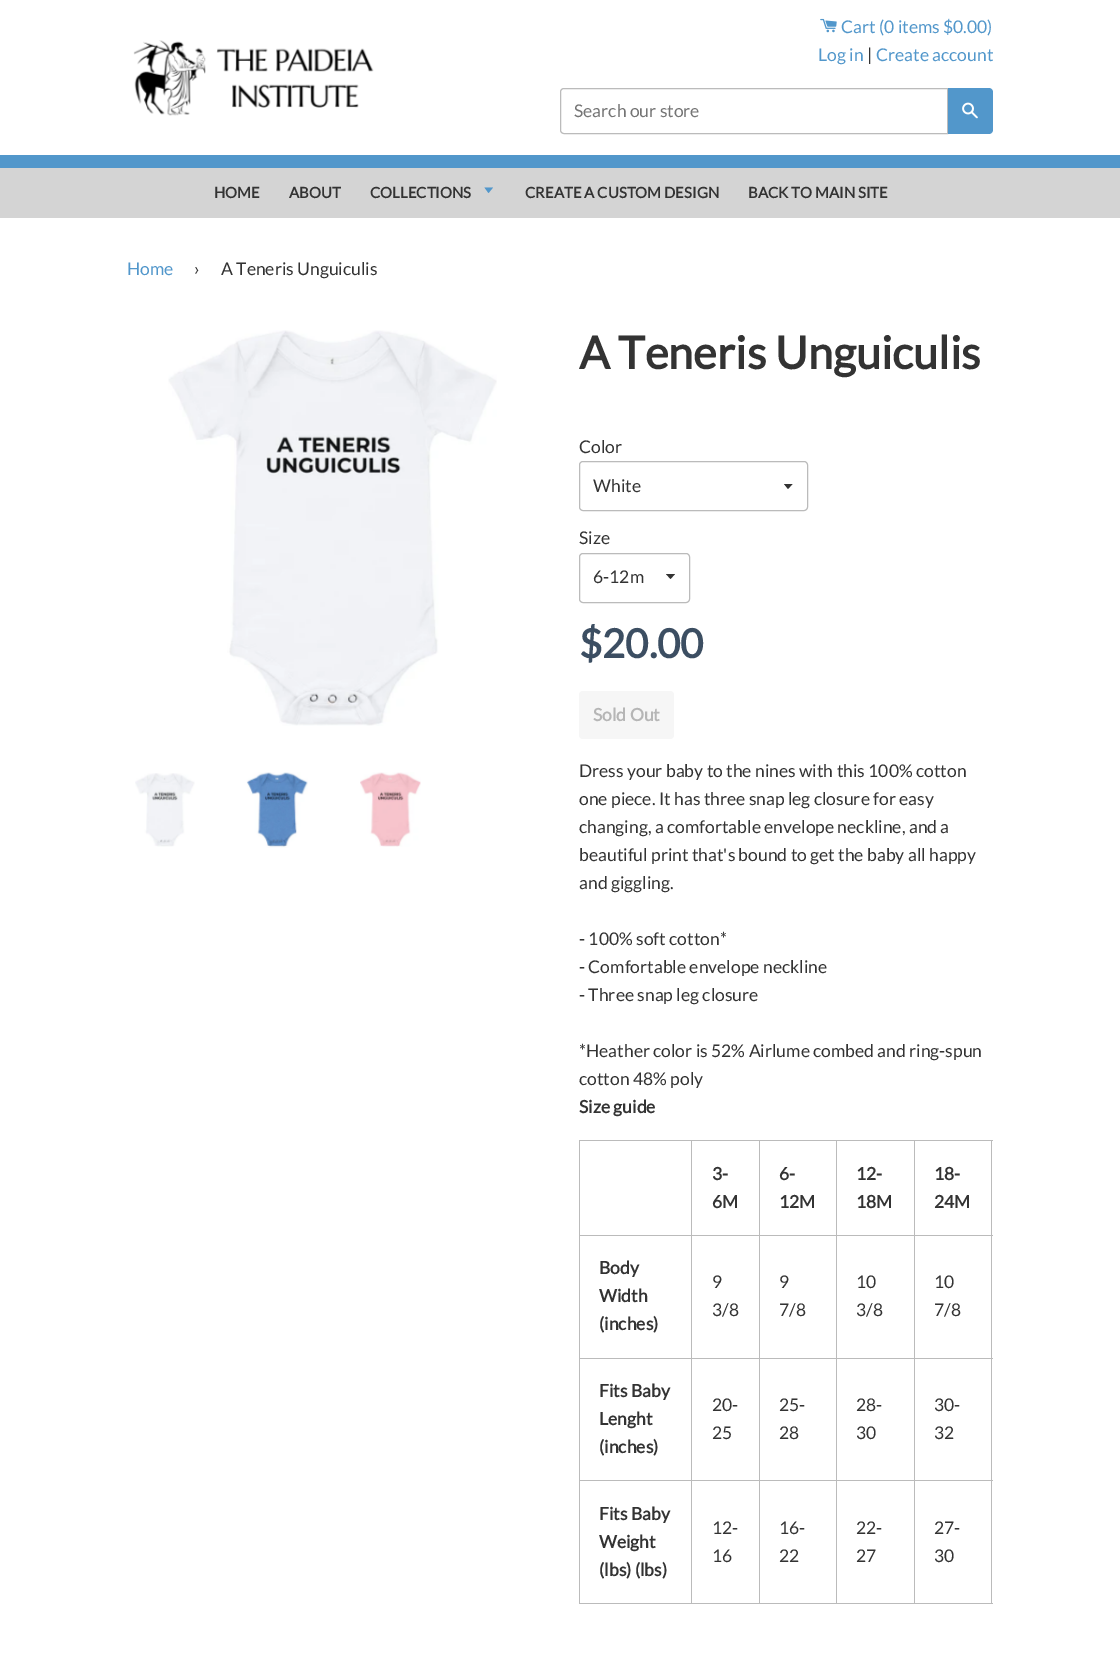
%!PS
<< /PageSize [1120 1677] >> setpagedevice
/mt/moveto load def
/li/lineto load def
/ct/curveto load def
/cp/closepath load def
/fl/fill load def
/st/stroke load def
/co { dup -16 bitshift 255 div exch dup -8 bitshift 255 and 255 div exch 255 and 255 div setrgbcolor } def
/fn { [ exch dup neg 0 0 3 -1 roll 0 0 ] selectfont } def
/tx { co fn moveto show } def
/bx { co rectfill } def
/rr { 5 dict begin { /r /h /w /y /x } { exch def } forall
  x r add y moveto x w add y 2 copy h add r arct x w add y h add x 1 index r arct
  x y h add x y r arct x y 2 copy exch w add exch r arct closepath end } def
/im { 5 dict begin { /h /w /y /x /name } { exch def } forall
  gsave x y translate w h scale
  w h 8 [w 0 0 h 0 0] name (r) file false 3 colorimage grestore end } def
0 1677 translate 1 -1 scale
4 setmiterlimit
0 0 1120 1677 16#FFFFFF bx
(media/1.raw) 133 40 241 76 im
(media/2.raw) 820 18 17 15 im
16#BBBBBB co
564 88.5 mt 947.5 88.5 li 947.5 133.5 li 564 133.5 li 562 133.5 560.5 132 560.5 130 ct 560.5 92 li 560.5 90 562 88.5 564 88.5 ct cp st
16#5297CB co
948 88 mt 989 88 li 991 88 993 90 993 92 ct 993 130 li 993 132 991 134 989 134 ct 948 134 li cp fl
(media/3.raw) 962 102 16 17 im
0 155 1120 13 16#5297CB bx
0 168 1120 50 16#D4D4D4 bx
16#5297CB co
484.5 187.5 mt 488.5 193 li 493 187.5 li cp fl
(media/4.raw) 168 330 329 396 im
(media/5.raw) 135 773 60 74 im
(media/6.raw) 246 772 62 76 im
(media/7.raw) 360 772 61 75 im
16#333333 co
784 484 mt 788 489 li 792.5 484 li cp fl
16#BBBBBB co
579.5 461.5 228 49 3.5 rr st
16#333333 co
666 574 mt 670.5 579 li 675 574 li cp fl
16#BBBBBB co
579.5 553.5 110 49 3.5 rr st
16#F6F6F6 co
579 691 95 48 4 rr fl
914 1140 79 1 16#BBBBBB bx
914 1235 79 1 16#BBBBBB bx
914 1358 79 1 16#BBBBBB bx
914 1480 79 1 16#BBBBBB bx
991 1480 1 124 16#BBBBBB bx
914 1603 79 1 16#BBBBBB bx
914 1480 1 124 16#BBBBBB bx
836 1480 79 1 16#BBBBBB bx
914 1358 1 123 16#BBBBBB bx
836 1358 79 1 16#BBBBBB bx
914 1235 1 124 16#BBBBBB bx
836 1235 79 1 16#BBBBBB bx
914 1140 1 96 16#BBBBBB bx
836 1140 79 1 16#BBBBBB bx
836 1603 79 1 16#BBBBBB bx
836 1480 1 124 16#BBBBBB bx
759 1480 79 1 16#BBBBBB bx
836 1358 1 123 16#BBBBBB bx
759 1358 79 1 16#BBBBBB bx
836 1235 1 124 16#BBBBBB bx
759 1235 79 1 16#BBBBBB bx
836 1140 1 96 16#BBBBBB bx
759 1140 79 1 16#BBBBBB bx
759 1603 79 1 16#BBBBBB bx
759 1480 1 124 16#BBBBBB bx
691 1480 69 1 16#BBBBBB bx
759 1358 1 123 16#BBBBBB bx
691 1358 69 1 16#BBBBBB bx
759 1235 1 124 16#BBBBBB bx
691 1235 69 1 16#BBBBBB bx
759 1140 1 96 16#BBBBBB bx
691 1140 69 1 16#BBBBBB bx
691 1603 69 1 16#BBBBBB bx
691 1480 1 124 16#BBBBBB bx
579 1480 114 1 16#BBBBBB bx
691 1358 1 123 16#BBBBBB bx
579 1358 114 1 16#BBBBBB bx
691 1235 1 124 16#BBBBBB bx
579 1235 114 1 16#BBBBBB bx
691 1140 1 96 16#BBBBBB bx
579 1140 114 1 16#BBBBBB bx
579 1603 114 1 16#BBBBBB bx
579 1480 1 124 16#BBBBBB bx
579 1358 1 123 16#BBBBBB bx
579 1235 1 124 16#BBBBBB bx
579 1140 1 96 16#BBBBBB bx
991 1358 1 123 16#BBBBBB bx
991 1235 1 124 16#BBBBBB bx
991 1140 1 96 16#BBBBBB bx
(Cart \(0 items $0.00\)) 841 33 /Lato-Regular 17.5 16#5297CB tx
(Log in) 818 61 /Lato-Regular 17.5 16#5297CB tx
(|) 867 61 /Lato-Regular 17.5 16#333333 tx
(Create account) 876 61 /Lato-Regular 17.5 16#5297CB tx
(Search our store) 574 117 /Lato-Regular 17.5 16#757575 tx
(HOME) 214 198 /Lato-Bold 15 16#333333 tx
(ABOUT) 289 198 /Lato-Bold 15 16#333333 tx
(COLLECTIONS) 370 198 /Lato-Bold 15 16#333333 tx
(CREATE A CUSTOM DESIGN) 525 198 /Lato-Bold 15 16#333333 tx
(BACK TO MAIN SITE) 748 198 /Lato-Bold 15 16#333333 tx
(Home) 127 275 /Lato-Regular 17.5 16#5297CB tx
(›) 194 275 /Lato-Regular 17.5 16#333333 tx
(A Teneris Unguiculis) 221 275 /Lato-Regular 17.5 16#333333 tx
(A Teneris Unguiculis) 579 369 /Lato-Bold 45 16#333333 tx
(Color) 579 453 /Lato-Regular 17.5 16#333333 tx
(White) 593 492 /Lato-Regular 17.5 16#333333 tx
(Size) 579 544 /Lato-Regular 17.5 16#333333 tx
(6-12m) 593 583 /Lato-Regular 17.5 16#333333 tx
($20.00) 579 658 /Lato-Bold 40 16#3C4E62 tx
(Sold Out) 593 721 /Lato-Bold 17.5 16#B6B6B6 tx
(Dress your baby to the nines with this 100% cotton) 579 777 /Lato-Regular 17.5 16#333333 tx
(one piece. It has three snap leg closure for easy) 579 805 /Lato-Regular 17.5 16#333333 tx
(changing, a comfortable envelope neckline, and a) 579 833 /Lato-Regular 17.5 16#333333 tx
(beautiful print that's bound to get the baby all happy) 579 861 /Lato-Regular 17.5 16#333333 tx
(and giggling.) 579 889 /Lato-Regular 17.5 16#333333 tx
(- 100% soft cotton*) 579 945 /Lato-Regular 17.5 16#333333 tx
(- Comfortable envelope neckline) 579 973 /Lato-Regular 17.5 16#333333 tx
(- Three snap leg closure) 579 1001 /Lato-Regular 17.5 16#333333 tx
(*Heather color is 52% Airlume combed and ring-spun) 579 1057 /Lato-Regular 17.5 16#333333 tx
(cotton 48% poly) 579 1085 /Lato-Regular 17.5 16#333333 tx
(Size guide) 579 1113 /Lato-Bold 17.5 16#333333 tx
(3-) 712 1180 /Lato-Bold 17.5 16#333333 tx
(6M) 712 1208 /Lato-Bold 17.5 16#333333 tx
(6-) 779 1180 /Lato-Bold 17.5 16#333333 tx
(12M) 779 1208 /Lato-Bold 17.5 16#333333 tx
(12-) 856 1180 /Lato-Bold 17.5 16#333333 tx
(18M) 856 1208 /Lato-Bold 17.5 16#333333 tx
(18-) 934 1180 /Lato-Bold 17.5 16#333333 tx
(24M) 934 1208 /Lato-Bold 17.5 16#333333 tx
(Body) 599 1274 /Lato-Bold 17.5 16#333333 tx
(Width) 599 1302 /Lato-Bold 17.5 16#333333 tx
(\(inches\)) 599 1330 /Lato-Bold 17.5 16#333333 tx
(9) 712 1288 /Lato-Regular 17.5 16#333333 tx
(3/8) 712 1316 /Lato-Regular 17.5 16#333333 tx
(9) 779 1288 /Lato-Regular 17.5 16#333333 tx
(7/8) 779 1316 /Lato-Regular 17.5 16#333333 tx
(10) 856 1288 /Lato-Regular 17.5 16#333333 tx
(3/8) 856 1316 /Lato-Regular 17.5 16#333333 tx
(10) 934 1288 /Lato-Regular 17.5 16#333333 tx
(7/8) 934 1316 /Lato-Regular 17.5 16#333333 tx
(Fits Baby) 599 1397 /Lato-Bold 17.5 16#333333 tx
(Lenght) 599 1425 /Lato-Bold 17.5 16#333333 tx
(\(inches\)) 599 1453 /Lato-Bold 17.5 16#333333 tx
(20-) 712 1411 /Lato-Regular 17.5 16#333333 tx
(25) 712 1439 /Lato-Regular 17.5 16#333333 tx
(25-) 779 1411 /Lato-Regular 17.5 16#333333 tx
(28) 779 1439 /Lato-Regular 17.5 16#333333 tx
(28-) 856 1411 /Lato-Regular 17.5 16#333333 tx
(30) 856 1439 /Lato-Regular 17.5 16#333333 tx
(30-) 934 1411 /Lato-Regular 17.5 16#333333 tx
(32) 934 1439 /Lato-Regular 17.5 16#333333 tx
(Fits Baby) 599 1520 /Lato-Bold 17.5 16#333333 tx
(Weight) 599 1548 /Lato-Bold 17.5 16#333333 tx
(\(lbs\) \(lbs\)) 599 1576 /Lato-Bold 17.5 16#333333 tx
(12-) 712 1534 /Lato-Regular 17.5 16#333333 tx
(16) 712 1562 /Lato-Regular 17.5 16#333333 tx
(16-) 779 1534 /Lato-Regular 17.5 16#333333 tx
(22) 779 1562 /Lato-Regular 17.5 16#333333 tx
(22-) 856 1534 /Lato-Regular 17.5 16#333333 tx
(27) 856 1562 /Lato-Regular 17.5 16#333333 tx
(27-) 934 1534 /Lato-Regular 17.5 16#333333 tx
(30) 934 1562 /Lato-Regular 17.5 16#333333 tx
showpage
